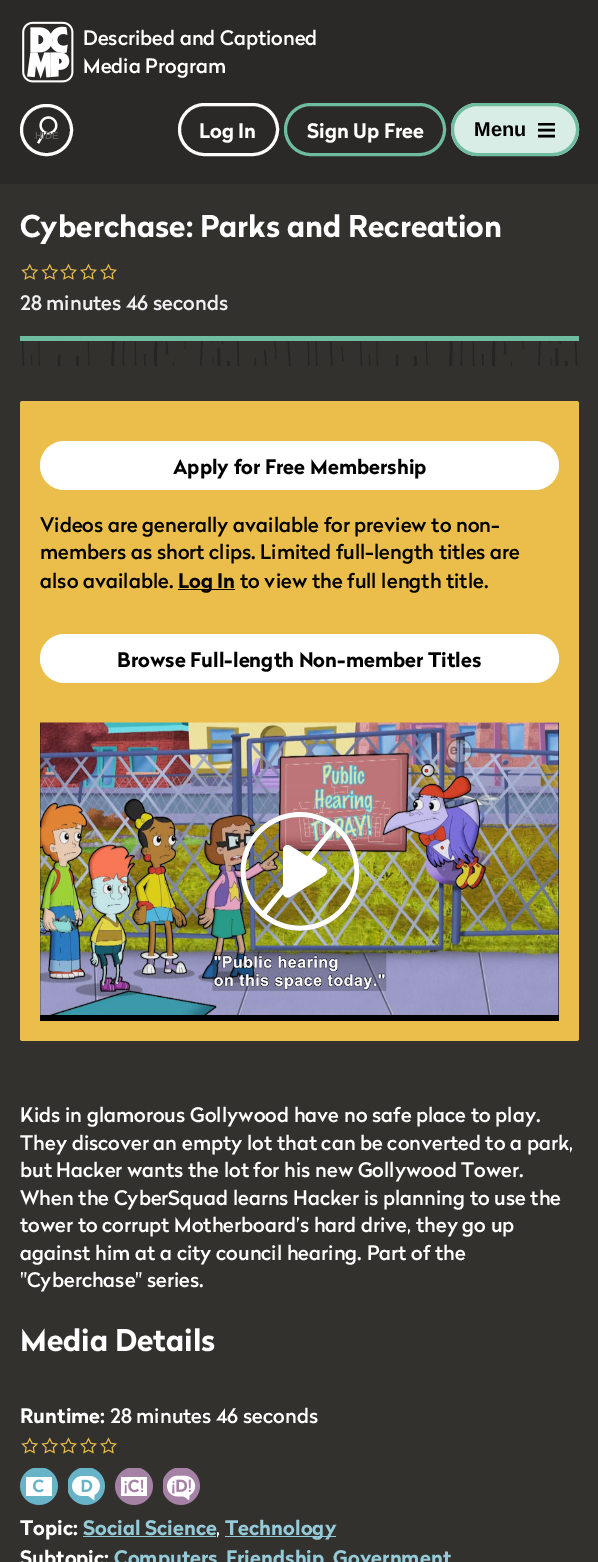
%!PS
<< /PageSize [598 1562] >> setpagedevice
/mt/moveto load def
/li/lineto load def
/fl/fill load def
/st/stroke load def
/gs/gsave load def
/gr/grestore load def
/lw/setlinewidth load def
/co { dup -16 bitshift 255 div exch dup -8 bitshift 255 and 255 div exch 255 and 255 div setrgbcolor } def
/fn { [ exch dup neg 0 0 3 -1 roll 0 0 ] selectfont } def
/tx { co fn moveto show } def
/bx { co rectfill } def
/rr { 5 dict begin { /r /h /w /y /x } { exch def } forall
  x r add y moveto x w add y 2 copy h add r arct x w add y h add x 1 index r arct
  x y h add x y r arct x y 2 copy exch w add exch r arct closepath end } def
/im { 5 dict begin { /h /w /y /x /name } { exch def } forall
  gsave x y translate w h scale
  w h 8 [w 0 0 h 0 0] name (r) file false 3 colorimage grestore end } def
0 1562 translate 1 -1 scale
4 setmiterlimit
0 0 598 1562 16#32312E bx
0 0 598 184 16#2B2927 bx
(media/1.raw) 22 21 52 62 im
(media/2.raw) 37 116 21 28 im
16#FFFFFF co
3 lw
21.5 105.5 50 49 24.5 rr st
179.5 104.5 98 50 25 rr st
16#6EBDA0 co
285.5 104.5 159 50 25 rr st
16#D7EDE5 co
451 103 128 53 26.5 rr fl
gs
538 123 17 15 rectclip
16#000000 co
2.5 lw
538 124 mt 555 124 li 538 130 mt 555 130 li 538 136 mt 555 136 li st
gr
16#6EBDA0 co
452.5 104.5 125 50 25 rr st
20 336 559 5 16#6EBDA0 bx
(media/3.raw) 21 263 18 17 im
(media/3.raw) 41 263 18 17 im
(media/4.raw) 60 263 17 17 im
(media/4.raw) 80 263 17 17 im
(media/4.raw) 100 263 17 17 im
(media/5.raw) 22 341 556 25 im
16#EBBE4B co
20 401 559 640 2.5 rr fl
16#FFFFFF co
40 441 519 49 24.5 rr fl
178 589 57 1 16#010101 bx
16#FFFFFF co
40 634 519 49 24.5 rr fl
40 723 519 298 16#000000 bx
(media/6.raw) 40 722 519 293 im
(media/7.raw) 240 812 120 119 im
(media/8.raw) 21 1437 18 17 im
(media/8.raw) 41 1437 18 17 im
(media/9.raw) 60 1437 17 17 im
(media/9.raw) 80 1437 17 17 im
(media/9.raw) 100 1437 17 17 im
(media/10.raw) 20 1468 38 37 im
(media/11.raw) 68 1468 37 37 im
(media/12.raw) 115 1468 38 37 im
(media/13.raw) 163 1468 37 37 im
83 1536 133 1 16#95CAD8 bx
225 1536 111 1 16#95CAD8 bx
(Described and Captioned) 83 45 /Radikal-Medium 20 16#FFFFFF tx
(Media Program) 83 73 /Radikal-Medium 20 16#FFFFFF tx
(HIDE) 35 139 /LiberationSans-Bold 10 16#5D5B5A tx
(Log In) 199 138 /Radikal-Bold 20 16#FFFFFF tx
(Sign Up Free) 307 138 /Radikal-Bold 20 16#FFFFFF tx
(Menu) 474 136 /LiberationSans-Bold 20 16#010101 tx
(Cyberchase: Parks and Recreation) 20 237 /Radikal-Bold 30 16#FFFFFF tx
(28 minutes 46 seconds) 20 310 /Radikal-Medium 20 16#EFEFEF tx
(Apply for Free Membership) 173 474 /Radikal-Bold 20 16#010101 tx
(Videos are generally available for preview to non-) 40 532 /Radikal-Medium 20 16#010101 tx
(members as short clips. Limited full-length titles are) 40 559 /Radikal-Medium 20 16#010101 tx
(also available.) 40 588 /Radikal-Medium 20 16#010101 tx
(Log In) 178 588 /Radikal-Bold 20 16#010101 tx
(to view the full length title.) 240 588 /Radikal-Medium 20 16#010101 tx
(Browse Full-length Non-member Titles) 117 667 /Radikal-Bold 20 16#010101 tx
(Kids in glamorous Gollywood have no safe place to play.) 20 1122 /Radikal-Medium 20 16#FFFFFF tx
(They discover an empty lot that can be converted to a park,) 20 1150 /Radikal-Medium 20 16#FFFFFF tx
(but Hacker wants the lot for his new Gollywood Tower.) 20 1177 /Radikal-Medium 20 16#FFFFFF tx
(When the CyberSquad learns Hacker is planning to use the) 20 1205 /Radikal-Medium 20 16#FFFFFF tx
(tower to corrupt Motherboard’s hard drive, they go up) 20 1232 /Radikal-Medium 20 16#FFFFFF tx
(against him at a city council hearing. Part of the) 20 1260 /Radikal-Medium 20 16#FFFFFF tx
("Cyberchase" series.) 20 1287 /Radikal-Medium 20 16#FFFFFF tx
(Media Details) 20 1351 /Radikal-Bold 30 16#FFFFFF tx
(Runtime:) 20 1423 /Radikal-Bold 20 16#FFFFFF tx
(28 minutes 46 seconds) 110 1423 /Radikal-Medium 20 16#FFFFFF tx
(Topic:) 20 1535 /Radikal-Bold 20 16#FFFFFF tx
(Social Science) 83 1535 /Radikal-Bold 20 16#95CAD8 tx
(,) 216 1535 /Radikal-Medium 20 16#FFFFFF tx
(Technology) 225 1535 /Radikal-Bold 20 16#95CAD8 tx
(Subtopic:) 20 1565 /Radikal-Bold 20 16#FFFFFF tx
(Computers) 114 1565 /Radikal-Bold 20 16#95CAD8 tx
(Friendship) 226 1565 /Radikal-Bold 20 16#95CAD8 tx
(Government) 333 1565 /Radikal-Bold 20 16#95CAD8 tx
showpage
